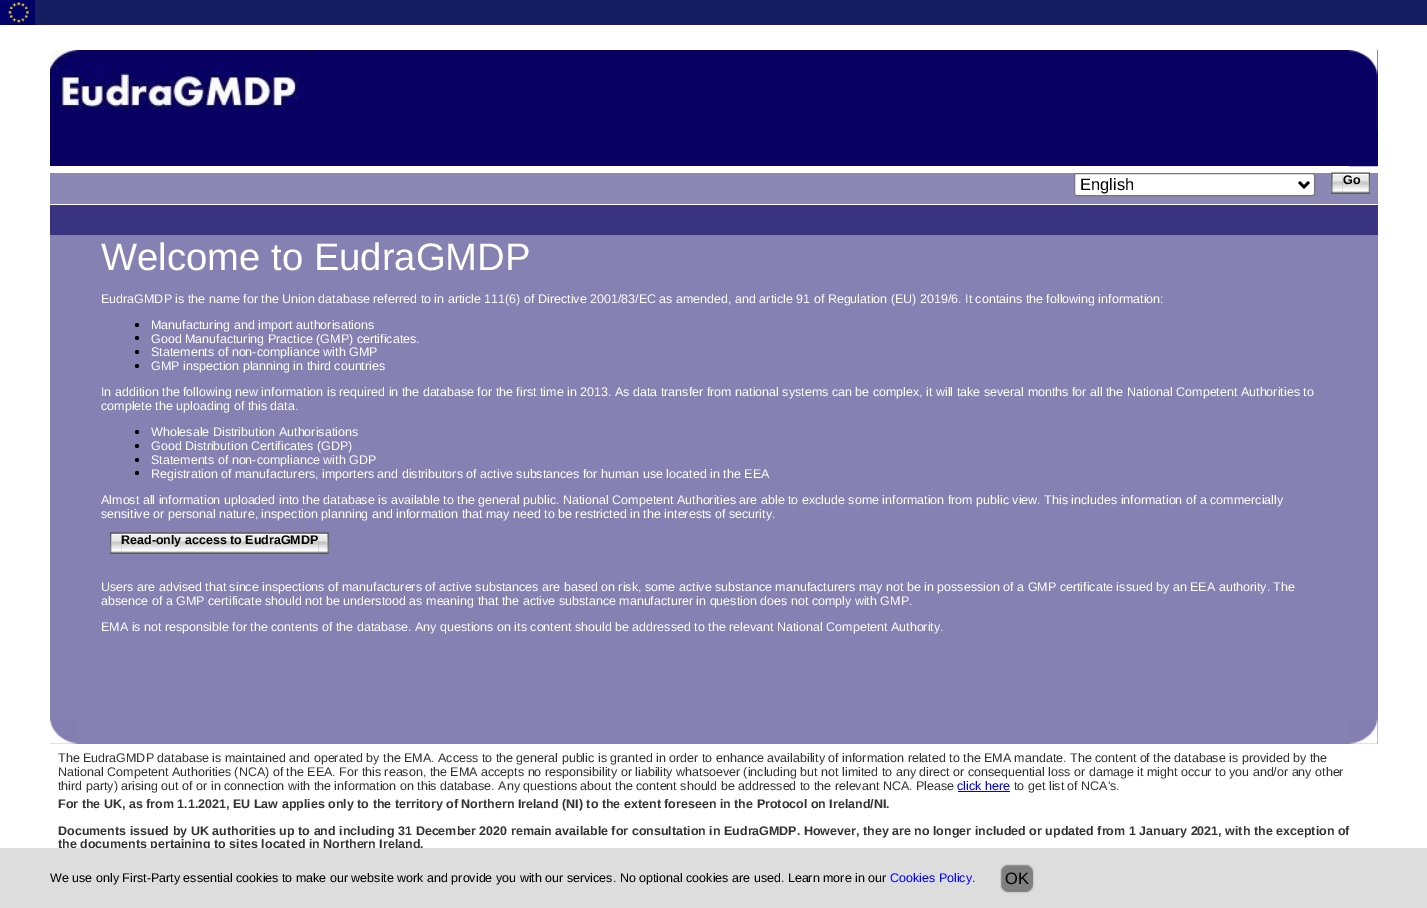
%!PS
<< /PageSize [1427 908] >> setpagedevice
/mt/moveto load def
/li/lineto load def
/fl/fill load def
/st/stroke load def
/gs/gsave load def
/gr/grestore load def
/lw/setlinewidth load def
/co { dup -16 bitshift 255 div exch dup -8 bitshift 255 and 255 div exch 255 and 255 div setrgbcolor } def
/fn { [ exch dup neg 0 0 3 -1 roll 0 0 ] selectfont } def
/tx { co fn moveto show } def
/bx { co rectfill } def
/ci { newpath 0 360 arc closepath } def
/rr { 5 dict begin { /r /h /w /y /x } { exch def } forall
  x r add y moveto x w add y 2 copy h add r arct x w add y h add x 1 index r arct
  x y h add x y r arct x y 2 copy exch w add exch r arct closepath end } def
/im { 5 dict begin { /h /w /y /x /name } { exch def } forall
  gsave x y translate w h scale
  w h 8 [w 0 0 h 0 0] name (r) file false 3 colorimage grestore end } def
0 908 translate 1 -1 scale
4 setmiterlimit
0 0 1427 908 16#FFFFFF bx
(media/1.raw) 0 0 35 25 im
35 0 1392 25 16#151E61 bx
50 50 1299 116 16#080063 bx
(media/2.raw) 50 50 264 61 im
1377 50 1 116 16#080063 bx
(media/3.raw) 1348 50 30 117 im
50 235 1328 484 16#8581B2 bx
50 173 1328 31 16#8C88B6 bx
16#FFFFFF co
1074.5 173.5 240 22 2 rr gs fl gr
16#767676 co
st
16#000000 co
2.5 lw
1299 182 mt 1304 187 li 1309 182 li st
(media/5.raw) 1342 172 18 22 im
(media/4.raw) 1331 172 12 22 im
(media/6.raw) 1360 172 10 22 im
50 205 1328 30 16#393382 bx
16#000000 co
137 325 2 ci fl
137 338 2 ci fl
137 352 2 ci fl
137 366 2 ci fl
137 432 2 ci fl
137 446 2 ci fl
137 460 2 ci fl
137 473 2 ci fl
(media/8.raw) 121 532 198 22 im
(media/7.raw) 109 532 13 22 im
50 719 1328 25 16#8581B2 bx
(media/10.raw) 50 719 28 25 im
(media/11.raw) 1349 719 29 25 im
958 791 52 1 16#0000EE bx
(English) 1080 190 /LiberationSans-Regular 16.5 16#000000 tx
(Go) 1343 184 /LiberationSans-Bold 12.5 16#000000 tx
(Welcome to EudraGMDP) 101 270 /LiberationSans-Regular 38.25 16#FFFFFF tx
(EudraGMDP is the name for the Union database referred to in article 111\(6\) of Directive 2001/83/EC as amended, and article 91 of Regulation \(EU\) 2019/6. It contains the following information:) 101 303 /LiberationSans-Regular 12.5 16#FFFFFF tx
(Manufacturing and import authorisations) 151 329 /LiberationSans-Regular 12.5 16#FFFFFF tx
(Good Manufacturing Practice \(GMP\) certificates.) 151 343 /LiberationSans-Regular 12.5 16#FFFFFF tx
(Statements of non-compliance with GMP) 151 356 /LiberationSans-Regular 12.5 16#FFFFFF tx
(GMP inspection planning in third countries) 151 370 /LiberationSans-Regular 12.5 16#FFFFFF tx
(In addition the following new information is required in the database for the first time in 2013. As data transfer from national systems can be complex, it will take several months for all the National Competent Authorities to) 101 396 /LiberationSans-Regular 12.5 16#FFFFFF tx
(complete the uploading of this data.) 101 410 /LiberationSans-Regular 12.5 16#FFFFFF tx
(Wholesale Distribution Authorisations) 151 436 /LiberationSans-Regular 12.5 16#FFFFFF tx
(Good Distribution Certificates \(GDP\)) 151 450 /LiberationSans-Regular 12.5 16#FFFFFF tx
(Statements of non-compliance with GDP) 151 464 /LiberationSans-Regular 12.5 16#FFFFFF tx
(Registration of manufacturers, importers and distributors of active substances for human use located in the EEA) 151 478 /LiberationSans-Regular 12.5 16#FFFFFF tx
(Almost all information uploaded into the database is available to the general public. National Competent Authorities are able to exclude some information from public view. This includes information of a commercially) 101 504 /LiberationSans-Regular 12.5 16#FFFFFF tx
(sensitive or personal nature, inspection planning and information that may need to be restricted in the interests of security.) 101 518 /LiberationSans-Regular 12.5 16#FFFFFF tx
(Read-only access to EudraGMDP) 121 544 /LiberationSans-Bold 12.5 16#000000 tx
(media/9.raw) 318 532 11 22 im
(Users are advised that since inspections of manufacturers of active substances are based on risk, some active substance manufacturers may not be in possession of a GMP certificate issued by an EEA authority. The) 101 591 /LiberationSans-Regular 12.5 16#FFFFFF tx
(absence of a GMP certificate should not be understood as meaning that the active substance manufacturer in question does not comply with GMP.) 101 605 /LiberationSans-Regular 12.5 16#FFFFFF tx
(EMA is not responsible for the contents of the database. Any questions on its content should be addressed to the relevant National Competent Authority.) 101 631 /LiberationSans-Regular 12.5 16#FFFFFF tx
(The EudraGMDP database is maintained and operated by the EMA. Access to the general public is granted in order to enhance availability of information related to the EMA mandate. The content of the database is provided by the) 58 762 /LiberationSans-Regular 12.5 16#333333 tx
(National Competent Authorities \(NCA\) of the EEA. For this reason, the EMA accepts no responsibility or liability whatsoever \(including but not limited to any direct or consequential loss or damage it might occur to you and/or any other) 58 776 /LiberationSans-Regular 12.5 16#333333 tx
(third party\) arising out of or in connection with the information on this database. Any questions about the content should be addressed to the relevant NCA. Please) 58 790 /LiberationSans-Regular 12.5 16#333333 tx
(click here) 957 790 /LiberationSans-Regular 12.5 16#0000EE tx
(to get list of NCA's.) 1014 790 /LiberationSans-Regular 12.5 16#333333 tx
(For the UK, as from 1.1.2021, EU Law applies only to the territory of Northern Ireland \(NI\) to the extent foreseen in the Protocol on Ireland/NI.) 58 808 /LiberationSans-Bold 12.5 16#333333 tx
(Documents issued by UK authorities up to and including 31 December 2020 remain available for consultation in EudraGMDP. However, they are no longer included or updated from 1 January 2021, with the exception of) 58 835 /LiberationSans-Bold 12.5 16#333333 tx
(the documents pertaining to sites located in Northern Ireland.) 58 848 /LiberationSans-Bold 12.5 16#333333 tx
0 848 1427 60 16#DDDDDD bx
(We use only First-Party essential cookies to make our website work and provide you with our services. No optional cookies are used. Learn more in our) 50 882 /LiberationSans-Regular 12.5 16#000000 tx
(Cookies Policy) 890 882 /LiberationSans-Regular 12.5 16#0000FF tx
(.) 972 882 /LiberationSans-Regular 12.5 16#000000 tx
16#808080 co
1000.5 864.5 33 28 7.5 rr gs fl gr
16#CCCCCC co
1 lw
st
(OK) 1005 884 /LiberationSans-Regular 16.5 16#000000 tx
showpage
